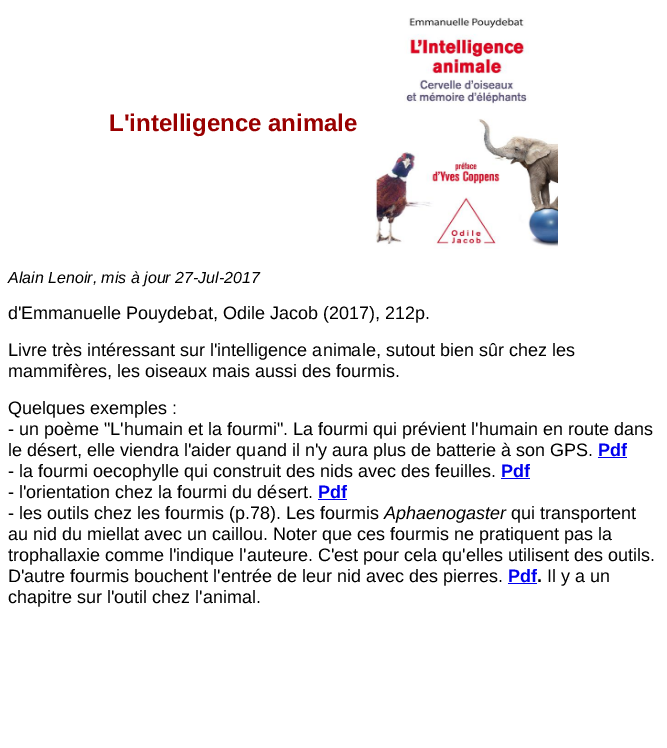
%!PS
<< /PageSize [667 748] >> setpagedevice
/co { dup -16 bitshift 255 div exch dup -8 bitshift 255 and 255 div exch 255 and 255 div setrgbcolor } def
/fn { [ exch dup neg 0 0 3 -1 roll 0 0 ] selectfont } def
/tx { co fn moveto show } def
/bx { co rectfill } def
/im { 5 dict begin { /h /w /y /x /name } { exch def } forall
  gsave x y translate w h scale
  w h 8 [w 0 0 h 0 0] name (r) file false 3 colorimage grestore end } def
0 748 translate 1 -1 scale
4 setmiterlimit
0 0 667 748 16#FFFFFF bx
(media/1.raw) 375 17 183 232 im
598 457 29 1 16#0000EE bx
501 478 29 1 16#0000EE bx
318 499 29 1 16#0000EE bx
508 583 29 1 16#0000EE bx
(L'intelligence animale) 109 131 /LiberationSans-Bold 24 16#990000 tx
(Alain Lenoir, mis à jour 27-Jul-2017) 8 283 /LiberationSans-Italic 16 16#000000 tx
(d'Emmanuelle Pouydebat, Odile Jacob \(2017\), 212p.) 8 319 /LiberationSans-Regular 18 16#000000 tx
(Livre très intéressant sur l'intelligence animale, sutout bien sûr chez les) 8 356 /LiberationSans-Regular 18 16#000000 tx
(mammifères, les oiseaux mais aussi des fourmis.) 8 377 /LiberationSans-Regular 18 16#000000 tx
(Quelques exemples :) 8 414 /LiberationSans-Regular 18 16#000000 tx
(- un poème "L'humain et la fourmi". La fourmi qui prévient l'humain en route dans) 8 435 /LiberationSans-Regular 18 16#000000 tx
(le désert, elle viendra l'aider quand il n'y aura plus de batterie à son GPS.) 8 456 /LiberationSans-Regular 18 16#000000 tx
(Pdf) 598 456 /LiberationSans-Bold 18 16#0000EE tx
(- la fourmi oecophylle qui construit des nids avec des feuilles.) 8 477 /LiberationSans-Regular 18 16#000000 tx
(Pdf) 501 477 /LiberationSans-Bold 18 16#0000EE tx
(- l'orientation chez la fourmi du désert.) 8 498 /LiberationSans-Regular 18 16#000000 tx
(Pdf) 318 498 /LiberationSans-Bold 18 16#0000EE tx
(- les outils chez les fourmis \(p.78\). Les fourmis) 8 519 /LiberationSans-Regular 18 16#000000 tx
(Aphaenogaster) 384 519 /LiberationSans-Italic 18 16#000000 tx
(qui transportent) 511 519 /LiberationSans-Regular 18 16#000000 tx
(au nid du miellat avec un caillou. Noter que ces fourmis ne pratiquent pas la) 8 540 /LiberationSans-Regular 18 16#000000 tx
(trophallaxie comme l'indique l'auteure. C'est pour cela qu'elles utilisent des outils.) 8 561 /LiberationSans-Regular 18 16#000000 tx
(D'autre fourmis bouchent l'entrée de leur nid avec des pierres.) 8 582 /LiberationSans-Regular 18 16#000000 tx
(Pdf) 508 582 /LiberationSans-Bold 18 16#0000EE tx
(.) 537 582 /LiberationSans-Bold 18 16#000000 tx
(Il y a un) 547 582 /LiberationSans-Regular 18 16#000000 tx
(chapitre sur l'outil chez l'animal.) 8 603 /LiberationSans-Regular 18 16#000000 tx
showpage
